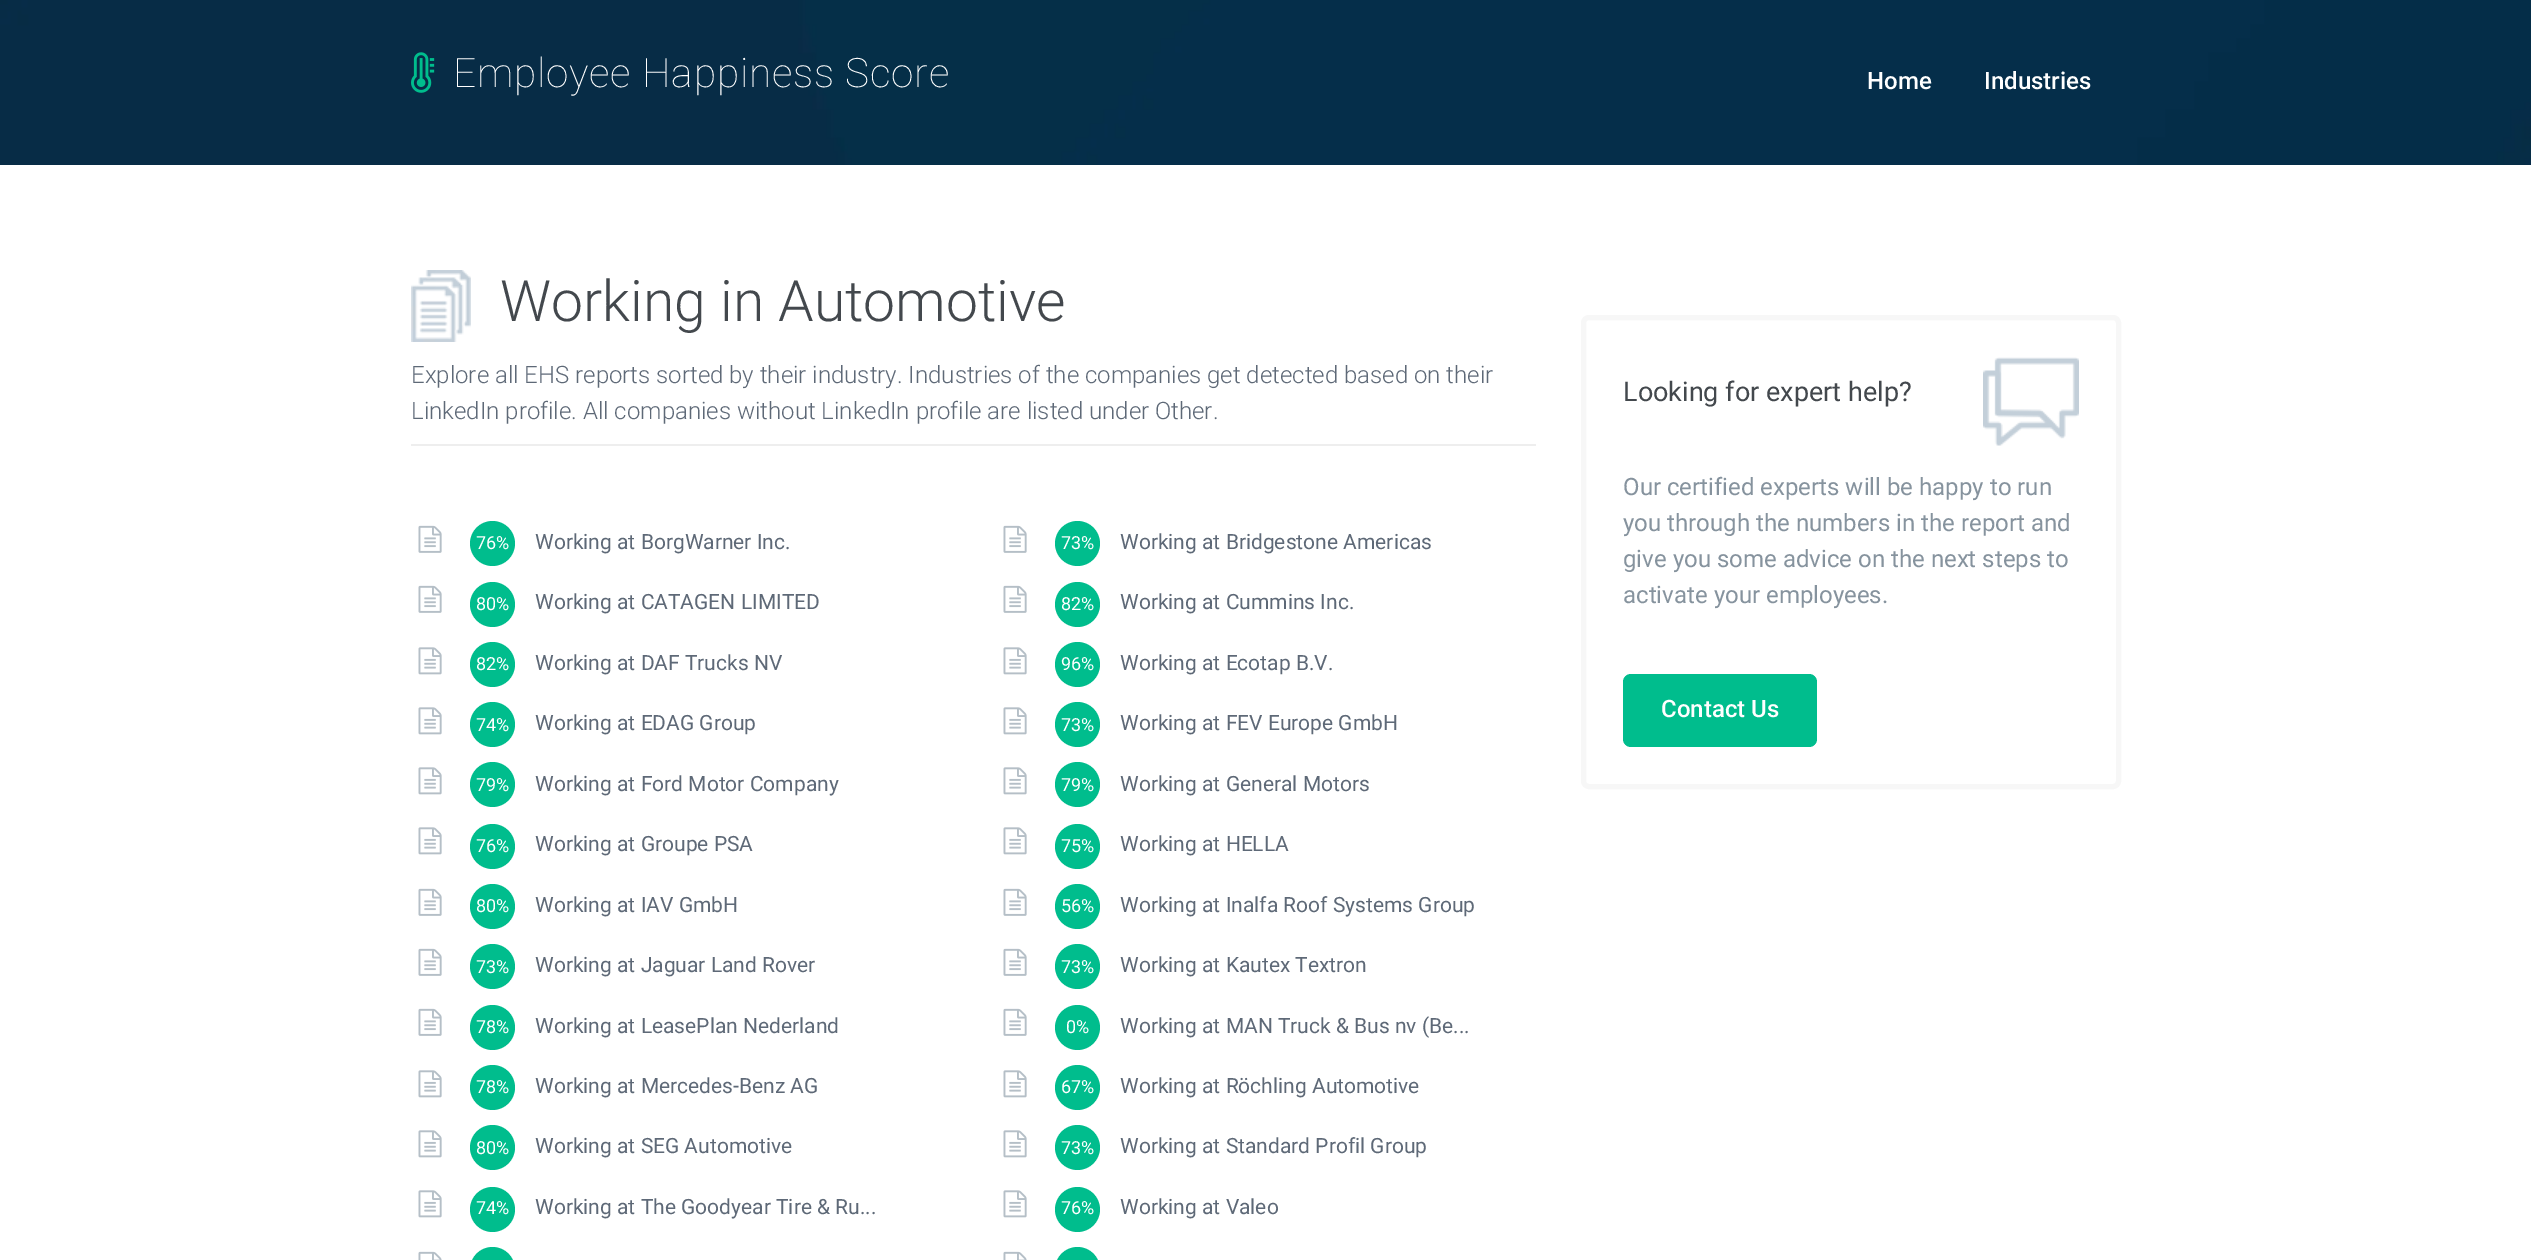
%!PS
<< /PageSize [2531 1260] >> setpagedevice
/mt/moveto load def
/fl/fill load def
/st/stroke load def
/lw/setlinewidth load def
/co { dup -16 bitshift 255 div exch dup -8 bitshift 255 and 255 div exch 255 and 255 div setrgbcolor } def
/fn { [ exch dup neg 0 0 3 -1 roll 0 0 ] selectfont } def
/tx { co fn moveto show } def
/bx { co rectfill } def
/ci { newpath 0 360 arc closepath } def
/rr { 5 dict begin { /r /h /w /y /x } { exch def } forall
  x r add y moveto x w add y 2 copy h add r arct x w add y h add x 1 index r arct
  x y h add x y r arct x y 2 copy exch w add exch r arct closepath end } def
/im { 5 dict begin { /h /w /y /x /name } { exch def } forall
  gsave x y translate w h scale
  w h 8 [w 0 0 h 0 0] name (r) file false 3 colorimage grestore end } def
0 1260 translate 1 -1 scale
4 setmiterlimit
0 0 2531 1260 16#FFFFFF bx
(media/1.raw) 0 0 2531 165 im
(media/2.raw) 411 52 24 41 im
411 444 1125 2 16#EEEEEE bx
(media/3.raw) 411 270 60 72 im
(media/4.raw) 418 525 24 28 im
16#00BD8D co
492.5 543.5 22.5 ci fl
(media/4.raw) 418 585 24 28 im
492.5 604.5 22.5 ci fl
(media/5.raw) 418 647 24 28 im
492.5 664.5 22.5 ci fl
(media/5.raw) 418 707 24 28 im
492.5 724.5 22.5 ci fl
(media/5.raw) 418 767 24 28 im
492.5 784.5 22.5 ci fl
(media/5.raw) 418 827 24 28 im
492.5 846.5 22.5 ci fl
(media/4.raw) 418 888 24 28 im
492.5 906.5 22.5 ci fl
(media/4.raw) 418 948 24 28 im
492.5 966.5 22.5 ci fl
(media/4.raw) 418 1008 24 28 im
492.5 1027.5 22.5 ci fl
(media/5.raw) 418 1070 24 28 im
492.5 1087.5 22.5 ci fl
(media/5.raw) 418 1130 24 28 im
492.5 1147.5 22.5 ci fl
(media/5.raw) 418 1190 24 28 im
492.5 1209.5 22.5 ci fl
(media/6.raw) 418 1251 24 9 im
470 1247 45 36 22.5 rr fl
(media/4.raw) 1003 525 24 28 im
1077.5 543.5 22.5 ci fl
(media/4.raw) 1003 585 24 28 im
1077.5 604.5 22.5 ci fl
(media/5.raw) 1003 647 24 28 im
1077.5 664.5 22.5 ci fl
(media/5.raw) 1003 707 24 28 im
1077.5 724.5 22.5 ci fl
(media/5.raw) 1003 767 24 28 im
1077.5 784.5 22.5 ci fl
(media/5.raw) 1003 827 24 28 im
1077.5 846.5 22.5 ci fl
(media/4.raw) 1003 888 24 28 im
1077.5 906.5 22.5 ci fl
(media/4.raw) 1003 948 24 28 im
1077.5 966.5 22.5 ci fl
(media/4.raw) 1003 1008 24 28 im
1077.5 1027.5 22.5 ci fl
(media/5.raw) 1003 1070 24 28 im
1077.5 1087.5 22.5 ci fl
(media/5.raw) 1003 1130 24 28 im
1077.5 1147.5 22.5 ci fl
(media/5.raw) 1003 1190 24 28 im
1077.5 1209.5 22.5 ci fl
(media/6.raw) 1003 1251 24 9 im
1055 1247 45 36 22.5 rr fl
16#F7F7F7 co
5 lw
1583.5 317.5 535 469 5.5 rr st
(media/7.raw) 1983 357 96 89 im
16#00BD8D co
1623 674 194 73 8 rr fl
/Roboto-Thin 40.5 fn
16#FFFFFF co
453 87 mt .8 0 (Employee Happiness Score) ashow
(Home) 1867 89 /Roboto-Medium 24 16#FFFFFF tx
(Industries) 1984 89 /Roboto-Medium 24 16#FFFFFF tx
(Working in Automotive) 500 321 /Roboto-Light 57 16#43484D tx
(Explore all EHS reports sorted by their industry. Industries of the companies get detected based on their) 411 383 /Roboto-Light 24 16#5E6977 tx
(LinkedIn profile. All companies without LinkedIn profile are listed under Other.) 411 419 /Roboto-Light 24 16#5E6977 tx
(76%) 476 549 /Roboto-Regular 18 16#FFFFFF tx
(Working at BorgWarner Inc.) 535 549 /Roboto-Regular 21 16#5E6977 tx
(80%) 476 610 /Roboto-Regular 18 16#FFFFFF tx
(Working at CATAGEN LIMITED) 535 609 /Roboto-Regular 21 16#5E6977 tx
(82%) 476 670 /Roboto-Regular 18 16#FFFFFF tx
(Working at DAF Trucks NV) 535 670 /Roboto-Regular 21 16#5E6977 tx
(74%) 476 731 /Roboto-Regular 18 16#FFFFFF tx
(Working at EDAG Group) 535 730 /Roboto-Regular 21 16#5E6977 tx
(79%) 476 791 /Roboto-Regular 18 16#FFFFFF tx
(Working at Ford Motor Company) 535 791 /Roboto-Regular 21 16#5E6977 tx
(76%) 476 852 /Roboto-Regular 18 16#FFFFFF tx
(Working at Groupe PSA) 535 851 /Roboto-Regular 21 16#5E6977 tx
(80%) 476 912 /Roboto-Regular 18 16#FFFFFF tx
(Working at IAV GmbH) 535 912 /Roboto-Regular 21 16#5E6977 tx
(73%) 476 973 /Roboto-Regular 18 16#FFFFFF tx
(Working at Jaguar Land Rover) 535 972 /Roboto-Regular 21 16#5E6977 tx
(78%) 476 1033 /Roboto-Regular 18 16#FFFFFF tx
(Working at LeasePlan Nederland) 535 1033 /Roboto-Regular 21 16#5E6977 tx
(78%) 476 1093 /Roboto-Regular 18 16#FFFFFF tx
(Working at Mercedes-Benz AG) 535 1093 /Roboto-Regular 21 16#5E6977 tx
(80%) 476 1154 /Roboto-Regular 18 16#FFFFFF tx
(Working at SEG Automotive) 535 1153 /Roboto-Regular 21 16#5E6977 tx
(74%) 476 1214 /Roboto-Regular 18 16#FFFFFF tx
(Working at The Goodyear Tire & Ru...) 535 1214 /Roboto-Regular 21 16#5E6977 tx
(73%) 1061 549 /Roboto-Regular 18 16#FFFFFF tx
(Working at Bridgestone Americas) 1120 549 /Roboto-Regular 21 16#5E6977 tx
(82%) 1061 610 /Roboto-Regular 18 16#FFFFFF tx
(Working at Cummins Inc.) 1120 609 /Roboto-Regular 21 16#5E6977 tx
(96%) 1061 670 /Roboto-Regular 18 16#FFFFFF tx
(Working at Ecotap B.V.) 1120 670 /Roboto-Regular 21 16#5E6977 tx
(73%) 1061 731 /Roboto-Regular 18 16#FFFFFF tx
(Working at FEV Europe GmbH) 1120 730 /Roboto-Regular 21 16#5E6977 tx
(79%) 1061 791 /Roboto-Regular 18 16#FFFFFF tx
(Working at General Motors) 1120 791 /Roboto-Regular 21 16#5E6977 tx
(75%) 1061 852 /Roboto-Regular 18 16#FFFFFF tx
(Working at HELLA) 1120 851 /Roboto-Regular 21 16#5E6977 tx
(56%) 1061 912 /Roboto-Regular 18 16#FFFFFF tx
(Working at Inalfa Roof Systems Group) 1120 912 /Roboto-Regular 21 16#5E6977 tx
(73%) 1061 973 /Roboto-Regular 18 16#FFFFFF tx
(Working at Kautex Textron) 1120 972 /Roboto-Regular 21 16#5E6977 tx
(0%) 1066 1033 /Roboto-Regular 18 16#FFFFFF tx
(Working at MAN Truck & Bus nv \(Be...) 1120 1033 /Roboto-Regular 21 16#5E6977 tx
(67%) 1061 1093 /Roboto-Regular 18 16#FFFFFF tx
(Working at Röchling Automotive) 1120 1093 /Roboto-Regular 21 16#5E6977 tx
(73%) 1061 1154 /Roboto-Regular 18 16#FFFFFF tx
(Working at Standard Profil Group) 1120 1153 /Roboto-Regular 21 16#5E6977 tx
(76%) 1061 1214 /Roboto-Regular 18 16#FFFFFF tx
(Working at Valeo) 1120 1214 /Roboto-Regular 21 16#5E6977 tx
(Looking for expert help?) 1623 401 /Roboto-Regular 27 16#43484D tx
(Our certified experts will be happy to run) 1623 495 /Roboto-Regular 24 16#86939E tx
(you through the numbers in the report and) 1623 531 /Roboto-Regular 24 16#86939E tx
(give you some advice on the next steps to) 1623 567 /Roboto-Regular 24 16#86939E tx
(activate your employees.) 1623 603 /Roboto-Regular 24 16#86939E tx
(Contact Us) 1661 717 /Roboto-Medium 24 16#FFFFFF tx
showpage
